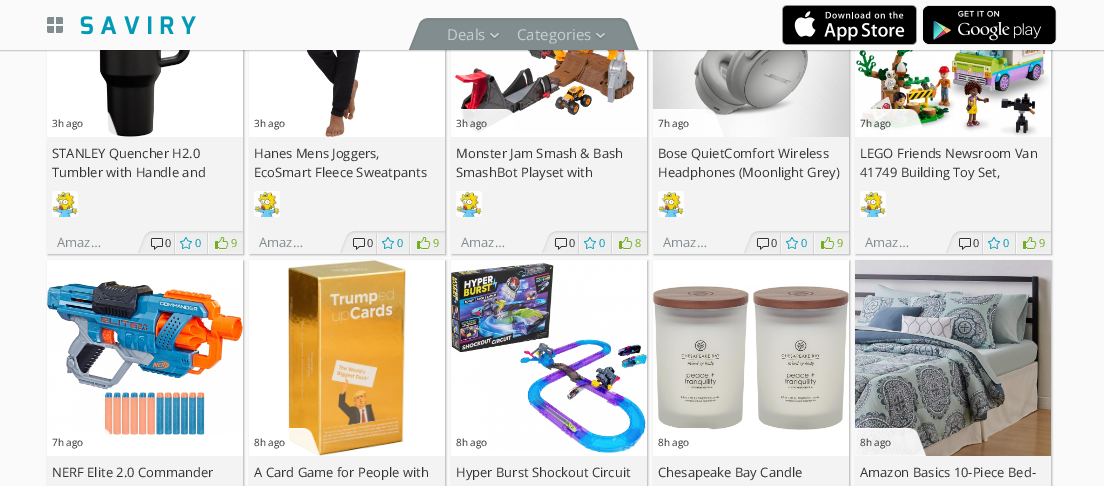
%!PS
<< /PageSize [1104 486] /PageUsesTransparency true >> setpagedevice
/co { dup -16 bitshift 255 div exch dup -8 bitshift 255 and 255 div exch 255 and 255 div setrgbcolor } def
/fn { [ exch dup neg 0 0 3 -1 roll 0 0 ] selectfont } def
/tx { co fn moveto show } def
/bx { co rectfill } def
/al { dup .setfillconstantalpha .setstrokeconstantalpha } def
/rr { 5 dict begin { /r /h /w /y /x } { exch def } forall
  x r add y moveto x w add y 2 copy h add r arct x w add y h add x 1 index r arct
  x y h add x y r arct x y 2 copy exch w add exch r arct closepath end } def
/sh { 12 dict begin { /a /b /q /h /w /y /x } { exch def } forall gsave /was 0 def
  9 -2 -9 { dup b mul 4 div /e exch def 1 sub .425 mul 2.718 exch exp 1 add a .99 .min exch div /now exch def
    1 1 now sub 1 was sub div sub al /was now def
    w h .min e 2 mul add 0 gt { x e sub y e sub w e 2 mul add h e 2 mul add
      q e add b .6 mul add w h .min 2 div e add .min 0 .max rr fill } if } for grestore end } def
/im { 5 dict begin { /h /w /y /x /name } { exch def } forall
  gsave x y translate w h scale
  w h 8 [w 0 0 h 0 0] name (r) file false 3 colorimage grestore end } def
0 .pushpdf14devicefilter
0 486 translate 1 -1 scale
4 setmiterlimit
0 0 1104 486 16#FAFAFA bx
16#000000 co
48 -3 196 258 0 1 .3 sh
47 50 196 87 16#FFFFFF bx
(media/9.raw) 99 50 92 87 im
16#000000 co
250 -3 196 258 0 1 .3 sh
249 50 196 87 16#FFFFFF bx
(media/15.raw) 303 50 76 87 im
16#000000 co
452 -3 196 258 0 1 .3 sh
451 50 196 87 16#FFFFFF bx
(media/17.raw) 451 50 190 83 im
16#000000 co
654 -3 196 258 0 1 .3 sh
(media/19.raw) 653 50 196 87 im
856 -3 196 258 0 1 .3 sh
855 50 196 87 16#FFFFFF bx
(media/21.raw) 856 50 194 87 im
16#000000 co
0 1 1104 50 0 .5 .2 sh
0 0 1104 50 16#FAFAFA bx
(media/1.raw) 80 16 116 19 im
(media/2.raw) 47 17 16 16 im
(media/3.raw) 782 5 135 40 im
(media/4.raw) 922 5 135 40 im
(media/5.raw) 408 18 214 32 im
(media/6.raw) 489 33 11 7 im
(media/6.raw) 595 33 11 7 im
(media/7.raw) 619 18 20 32 im
47 137 196 117 16#F3F3F3 bx
(media/8.raw) 107 110 11 26 im
(media/10.raw) 52 191 26 26 im
(media/11.raw) 138 231 105 22 im
(media/12.raw) 151 238 12 13 im
174 233 1 21 16#D4D5D5 bx
(media/13.raw) 180 237 12 13 im
207 233 1 21 16#D4D5D5 bx
175 233 1 21 16#F8F8F8 bx
(media/14.raw) 215 237 14 13 im
208 233 1 21 16#F8F8F8 bx
249 137 196 117 16#F3F3F3 bx
(media/16.raw) 254 191 26 26 im
(media/11.raw) 340 231 105 22 im
(media/12.raw) 353 238 12 13 im
376 233 1 21 16#D4D5D5 bx
(media/13.raw) 382 237 12 13 im
409 233 1 21 16#D4D5D5 bx
377 233 1 21 16#F8F8F8 bx
(media/14.raw) 417 237 14 13 im
410 233 1 21 16#F8F8F8 bx
451 137 196 117 16#F3F3F3 bx
(media/18.raw) 461 109 53 24 im
(media/10.raw) 456 191 26 26 im
(media/11.raw) 542 231 105 22 im
(media/12.raw) 555 238 12 13 im
578 233 1 21 16#D4D5D5 bx
(media/13.raw) 584 237 12 13 im
611 233 1 21 16#D4D5D5 bx
579 233 1 21 16#F8F8F8 bx
(media/14.raw) 619 237 14 13 im
612 233 1 21 16#F8F8F8 bx
653 137 196 117 16#F3F3F3 bx
(media/20.raw) 653 109 71 28 im
(media/10.raw) 658 191 26 26 im
(media/11.raw) 744 231 105 22 im
(media/12.raw) 757 238 12 13 im
780 233 1 21 16#D4D5D5 bx
(media/13.raw) 786 237 12 13 im
813 233 1 21 16#D4D5D5 bx
781 233 1 21 16#F8F8F8 bx
(media/14.raw) 821 237 14 13 im
814 233 1 21 16#F8F8F8 bx
855 137 196 117 16#F3F3F3 bx
(media/22.raw) 858 109 65 24 im
(media/10.raw) 860 191 26 26 im
(media/11.raw) 946 231 105 22 im
(media/12.raw) 959 238 12 13 im
982 233 1 21 16#D4D5D5 bx
(media/13.raw) 988 237 12 13 im
1015 233 1 21 16#D4D5D5 bx
983 233 1 21 16#F8F8F8 bx
(media/14.raw) 1023 237 14 13 im
1016 233 1 21 16#F8F8F8 bx
16#000000 co
48 261 196 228 0 1 .3 sh
47 456 196 30 16#F3F3F3 bx
47 260 196 196 16#FFFFFF bx
(media/23.raw) 47 281 196 154 im
(media/24.raw) 104 428 7 7 im
16#000000 co
250 261 196 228 0 1 .3 sh
249 456 196 30 16#F3F3F3 bx
249 260 196 196 16#FFFFFF bx
(media/26.raw) 288 260 118 196 im
(media/25.raw) 288 428 32 28 im
16#000000 co
452 261 196 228 0 1 .3 sh
451 456 196 30 16#F3F3F3 bx
451 260 196 196 16#FFFFFF bx
(media/27.raw) 451 263 196 190 im
16#000000 co
654 261 196 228 0 1 .3 sh
653 456 196 30 16#F3F3F3 bx
653 260 196 196 16#FFFFFF bx
(media/28.raw) 653 286 196 144 im
(media/29.raw) 678 428 35 2 im
16#000000 co
856 261 196 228 0 1 .3 sh
855 456 196 30 16#F3F3F3 bx
(media/30.raw) 855 260 196 196 im
(media/31.raw) 855 428 71 28 im
(Deals) 447 40 /OpenSans-Regular 15 16#C6D0D2 tx
(Categories) 517 40 /OpenSans-Regular 15 16#C6D0D2 tx
(3h ago) 52 127 /OpenSans-Regular 10 16#333333 tx
(STANLEY Quencher H2.0) 52 158 /OpenSans-Regular 13 16#333333 tx
(Tumbler with Handle and) 52 177 /OpenSans-Regular 13 16#333333 tx
(Amaz…) 57 247 /OpenSans-Regular 13 16#828D8F tx
(0) 165 247 /OpenSans-Regular 11 16#333333 tx
(0) 195 247 /OpenSans-Regular 11 16#029AB5 tx
(9) 231 247 /OpenSans-Regular 11 16#71AE22 tx
(3h ago) 254 127 /OpenSans-Regular 10 16#333333 tx
(Hanes Mens Joggers,) 254 158 /OpenSans-Regular 13 16#333333 tx
(EcoSmart Fleece Sweatpants) 254 177 /OpenSans-Regular 13 16#333333 tx
(Amaz…) 259 247 /OpenSans-Regular 13 16#828D8F tx
(0) 367 247 /OpenSans-Regular 11 16#333333 tx
(0) 397 247 /OpenSans-Regular 11 16#029AB5 tx
(9) 433 247 /OpenSans-Regular 11 16#71AE22 tx
(3h ago) 456 127 /OpenSans-Regular 10 16#333333 tx
(Monster Jam Smash & Bash) 456 158 /OpenSans-Regular 13 16#333333 tx
(SmashBot Playset with) 456 177 /OpenSans-Regular 13 16#333333 tx
(Amaz…) 461 247 /OpenSans-Regular 13 16#828D8F tx
(0) 569 247 /OpenSans-Regular 11 16#333333 tx
(0) 599 247 /OpenSans-Regular 11 16#029AB5 tx
(8) 635 247 /OpenSans-Regular 11 16#71AE22 tx
(7h ago) 658 127 /OpenSans-Regular 10 16#333333 tx
(Bose QuietComfort Wireless) 658 158 /OpenSans-Regular 13 16#333333 tx
(Headphones \(Moonlight Grey\)) 658 177 /OpenSans-Regular 13 16#333333 tx
(Amaz…) 663 247 /OpenSans-Regular 13 16#828D8F tx
(0) 771 247 /OpenSans-Regular 11 16#333333 tx
(0) 801 247 /OpenSans-Regular 11 16#029AB5 tx
(9) 837 247 /OpenSans-Regular 11 16#71AE22 tx
(7h ago) 860 127 /OpenSans-Regular 10 16#333333 tx
(LEGO Friends Newsroom Van) 860 158 /OpenSans-Regular 13 16#333333 tx
(41749 Building Toy Set,) 860 177 /OpenSans-Regular 13 16#333333 tx
(Amaz…) 865 247 /OpenSans-Regular 13 16#828D8F tx
(0) 973 247 /OpenSans-Regular 11 16#333333 tx
(0) 1003 247 /OpenSans-Regular 11 16#029AB5 tx
(9) 1039 247 /OpenSans-Regular 11 16#71AE22 tx
(7h ago) 52 446 /OpenSans-Regular 10 16#333333 tx
(NERF Elite 2.0 Commander) 52 477 /OpenSans-Regular 13 16#333333 tx
(8h ago) 254 446 /OpenSans-Regular 10 16#333333 tx
(A Card Game for People with) 254 477 /OpenSans-Regular 13 16#333333 tx
(8h ago) 456 446 /OpenSans-Regular 10 16#333333 tx
(Hyper Burst Shockout Circuit) 456 477 /OpenSans-Regular 13 16#333333 tx
(8h ago) 658 446 /OpenSans-Regular 10 16#333333 tx
(Chesapeake Bay Candle) 658 477 /OpenSans-Regular 13 16#333333 tx
(8h ago) 860 446 /OpenSans-Regular 10 16#333333 tx
(Amazon Basics 10-Piece Bed-) 860 477 /OpenSans-Regular 13 16#333333 tx
.poppdf14devicefilter showpage
